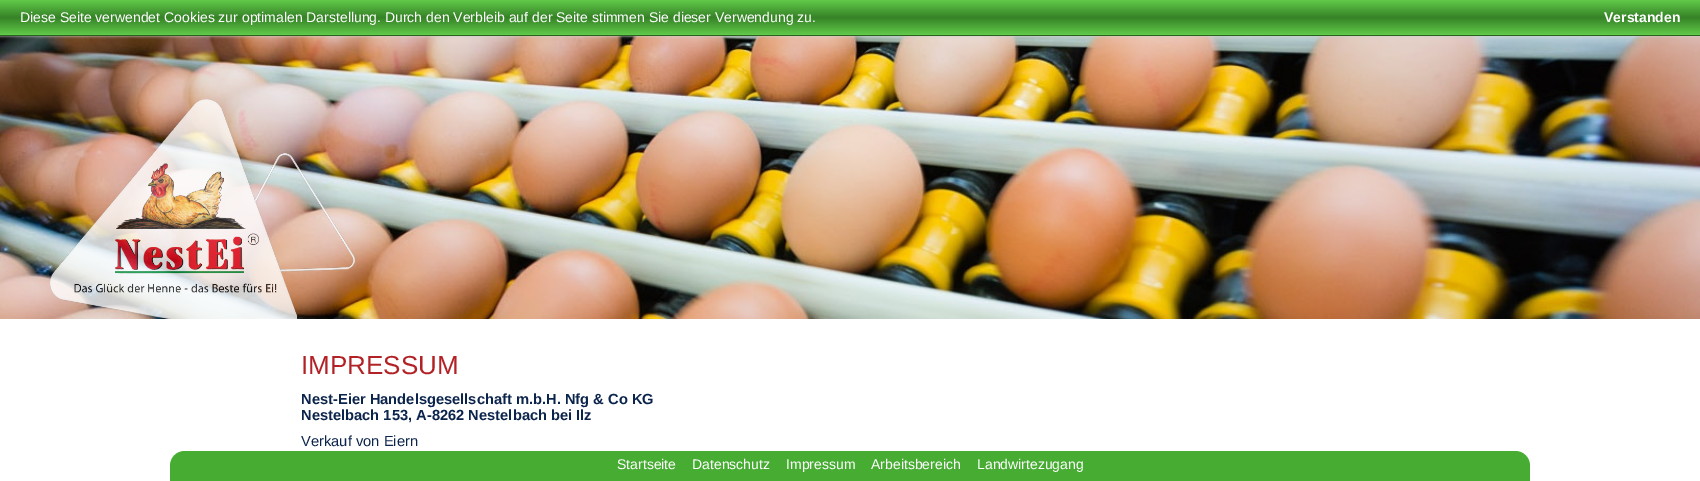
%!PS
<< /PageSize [1700 481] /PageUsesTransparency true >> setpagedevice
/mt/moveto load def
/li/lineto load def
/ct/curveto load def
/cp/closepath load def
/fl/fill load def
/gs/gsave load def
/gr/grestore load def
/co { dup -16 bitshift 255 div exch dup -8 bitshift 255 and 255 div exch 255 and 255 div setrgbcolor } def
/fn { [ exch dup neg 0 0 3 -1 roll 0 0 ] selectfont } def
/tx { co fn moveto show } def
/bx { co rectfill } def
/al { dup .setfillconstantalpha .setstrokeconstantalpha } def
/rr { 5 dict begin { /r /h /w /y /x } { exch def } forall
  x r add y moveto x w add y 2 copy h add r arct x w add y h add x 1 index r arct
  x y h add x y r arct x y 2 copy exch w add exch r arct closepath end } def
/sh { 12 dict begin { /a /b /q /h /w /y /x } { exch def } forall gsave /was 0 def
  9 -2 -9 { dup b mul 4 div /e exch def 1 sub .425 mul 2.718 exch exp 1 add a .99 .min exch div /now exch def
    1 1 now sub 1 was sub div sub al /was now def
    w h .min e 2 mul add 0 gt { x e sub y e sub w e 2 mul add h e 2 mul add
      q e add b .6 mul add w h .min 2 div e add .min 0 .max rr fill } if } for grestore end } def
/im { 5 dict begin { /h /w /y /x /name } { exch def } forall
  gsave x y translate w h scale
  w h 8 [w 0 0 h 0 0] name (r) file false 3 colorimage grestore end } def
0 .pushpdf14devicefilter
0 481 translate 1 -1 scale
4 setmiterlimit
0 0 1700 481 16#FFFFFF bx
(media/1.raw) 0 36 1700 283 im
16#CCCCCC co
0 0 1700 36 0 1.5 1 sh
gs 0 0 mt 1700 0 li 1700 35 li 0 35 li cp clip newpath
<< /ShadingType 2 /ColorSpace /DeviceRGB /Coords [850 0 850 35] /Extend [true true] /Function << /FunctionType 3 /Domain [0 1] /Functions [<< /FunctionType 2 /Domain [0 1] /C0 [.38 .792 .29] /C1 [.212 .51 .149] /N 1 >> << /FunctionType 2 /Domain [0 1] /C0 [.212 .51 .149] /C1 [.38 .792 .29] /N 1 >>] /Bounds [.5] /Encode [0 1 0 1] >> >> shfill gr
0 35 1700 1 16#28621C bx
(media/2.raw) 50 99 305 220 im
16#47AC32 co
185 451 mt 1515 451 li 1523.5 451 1530 457.5 1530 466 ct 1530 481 li 170 481 li 170 466 li 170 457.5 176.5 451 185 451 ct cp fl
(Diese Seite verwendet Cookies zur optimalen Darstellung. Durch den Verbleib auf der Seite stimmen Sie dieser Verwendung zu.) 20 22 /LiberationSans-Regular 14 16#FFFFFF tx
(Verstanden) 1604 22 /LiberationSans-Bold 14 16#FFFFFF tx
(IMPRESSUM) 301 374 /LiberationSans-Regular 26 16#B22125 tx
(Nest-Eier Handelsgesellschaft m.b.H. Nfg & Co KG) 301 404 /LiberationSans-Bold 14.7 16#0B244C tx
(Nestelbach 153, A-8262 Nestelbach bei Ilz) 301 420 /LiberationSans-Bold 14.7 16#0B244C tx
(Verkauf von Eiern) 301 446 /LiberationSans-Regular 14.7 16#0B244C tx
(Startseite) 617 469 /LiberationSans-Regular 14 16#FFFFFF tx
(Datenschutz) 692 469 /LiberationSans-Regular 14 16#FFFFFF tx
(Impressum) 786 469 /LiberationSans-Regular 14 16#FFFFFF tx
(Arbeitsbereich) 871 469 /LiberationSans-Regular 14 16#FFFFFF tx
(Landwirtezugang) 977 469 /LiberationSans-Regular 14 16#FFFFFF tx
.poppdf14devicefilter showpage
